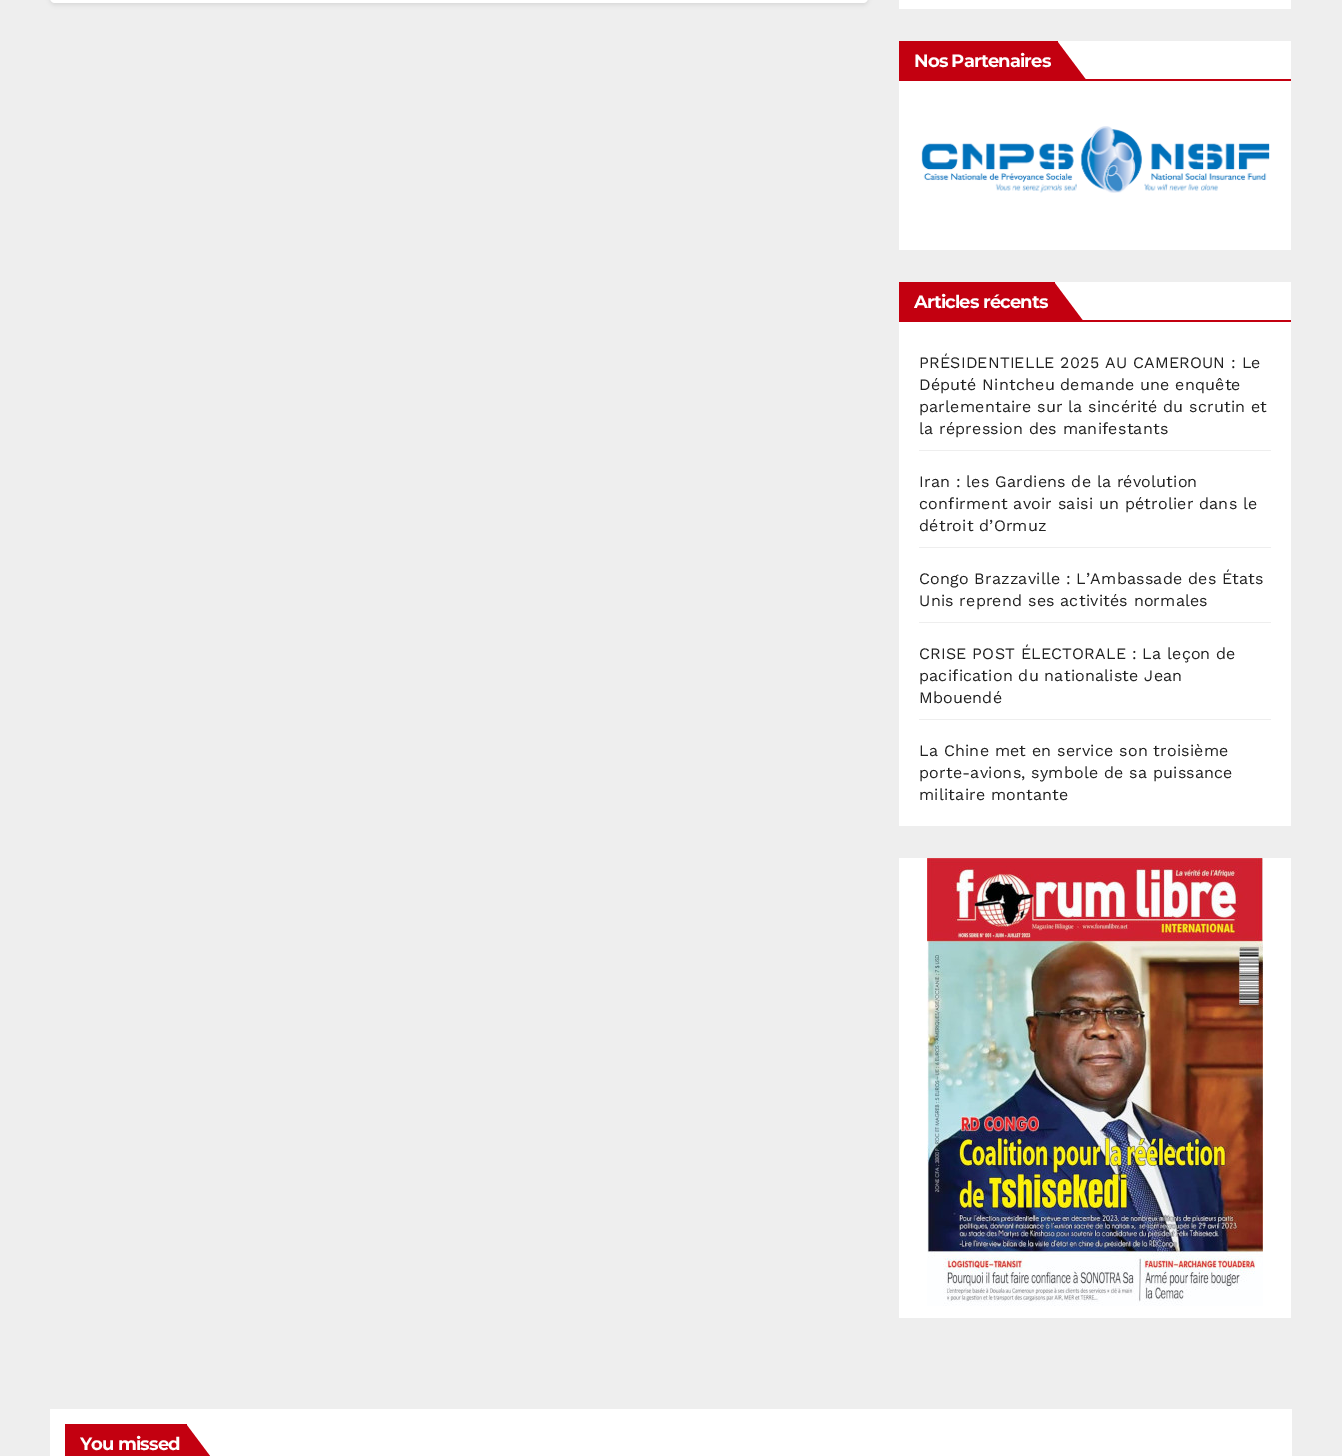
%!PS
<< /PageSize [1342 1456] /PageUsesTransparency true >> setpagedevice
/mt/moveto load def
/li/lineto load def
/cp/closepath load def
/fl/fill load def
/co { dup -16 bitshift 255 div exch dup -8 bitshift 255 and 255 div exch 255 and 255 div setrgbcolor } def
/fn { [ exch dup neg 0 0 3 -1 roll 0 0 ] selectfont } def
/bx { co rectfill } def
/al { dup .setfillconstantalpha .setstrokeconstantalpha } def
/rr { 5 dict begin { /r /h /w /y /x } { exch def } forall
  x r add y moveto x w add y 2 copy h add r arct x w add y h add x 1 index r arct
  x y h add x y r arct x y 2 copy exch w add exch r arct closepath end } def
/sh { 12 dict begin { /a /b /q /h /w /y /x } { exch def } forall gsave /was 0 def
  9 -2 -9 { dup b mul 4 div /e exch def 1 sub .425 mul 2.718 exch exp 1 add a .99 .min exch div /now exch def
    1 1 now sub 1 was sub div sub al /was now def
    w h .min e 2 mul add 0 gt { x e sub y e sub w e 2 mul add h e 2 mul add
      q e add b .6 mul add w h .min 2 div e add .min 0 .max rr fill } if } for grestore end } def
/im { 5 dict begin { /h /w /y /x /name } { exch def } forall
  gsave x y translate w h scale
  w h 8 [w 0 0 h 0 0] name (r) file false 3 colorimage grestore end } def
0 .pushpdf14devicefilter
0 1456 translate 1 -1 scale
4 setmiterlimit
0 0 1342 1456 16#EEEEEE bx
16#000000 co
50 -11 818 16 5 2 .08 sh
16#FFFFFF co
50 -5 818 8 5 rr fl
899 0 392 9 16#FFFFFF bx
899 41 392 209 16#FFFFFF bx
899 41 159 38 16#C30010 bx
1057 81 mt 1057 41 li 1087 81 li cp fl
899 79 392 2 16#C30010 bx
(media/1.raw) 921 126 349 67 im
899 282 392 544 16#FFFFFF bx
899 282 156 38 16#C30010 bx
1054 322 mt 1054 282 li 1084 322 li cp fl
899 320 392 2 16#C30010 bx
919 450 352 1 16#EEEEEE bx
919 547 352 1 16#EEEEEE bx
919 622 352 1 16#EEEEEE bx
919 719 352 1 16#EEEEEE bx
899 858 392 460 16#FFFFFF bx
(media/2.raw) 927 858 336 448 im
50 1409 1242 47 16#FFFFFF bx
65 1424 122 32 16#C30010 bx
186 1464 mt 186 1424 li 216 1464 li cp fl
/Montserrat-Bold 18 fn
16#FFFFFF co
914 67 mt -.9 0 (Nos Partenaires) ashow
914 308 mt -.9 0 (Articles récents) ashow
/WorkSans-Regular 16 fn
16#222222 co
919 368 mt .2 0 (PRÉSIDENTIELLE 2025 AU CAMEROUN : Le) ashow
919 390 mt .2 0 (Député Nintcheu demande une enquête) ashow
919 412 mt .2 0 (parlementaire sur la sincérité du scrutin et) ashow
919 434 mt .2 0 (la répression des manifestants) ashow
919 487 mt .2 0 (Iran : les Gardiens de la révolution) ashow
919 509 mt .2 0 (confirment avoir saisi un pétrolier dans le) ashow
919 531 mt .2 0 (détroit d’Ormuz) ashow
919 584 mt .2 0 (Congo Brazzaville : L’Ambassade des États) ashow
919 606 mt .2 0 (Unis reprend ses activités normales) ashow
919 659 mt .2 0 (CRISE POST ÉLECTORALE : La leçon de) ashow
919 681 mt .2 0 (pacification du nationaliste Jean) ashow
919 703 mt .2 0 (Mbouendé) ashow
919 756 mt .2 0 (La Chine met en service son troisième) ashow
919 778 mt .2 0 (porte-avions, symbole de sa puissance) ashow
919 800 mt .2 0 (militaire montante) ashow
/Montserrat-Bold 18 fn
16#FFFFFF co
80 1450 mt -.9 0 (You missed) ashow
.poppdf14devicefilter showpage
